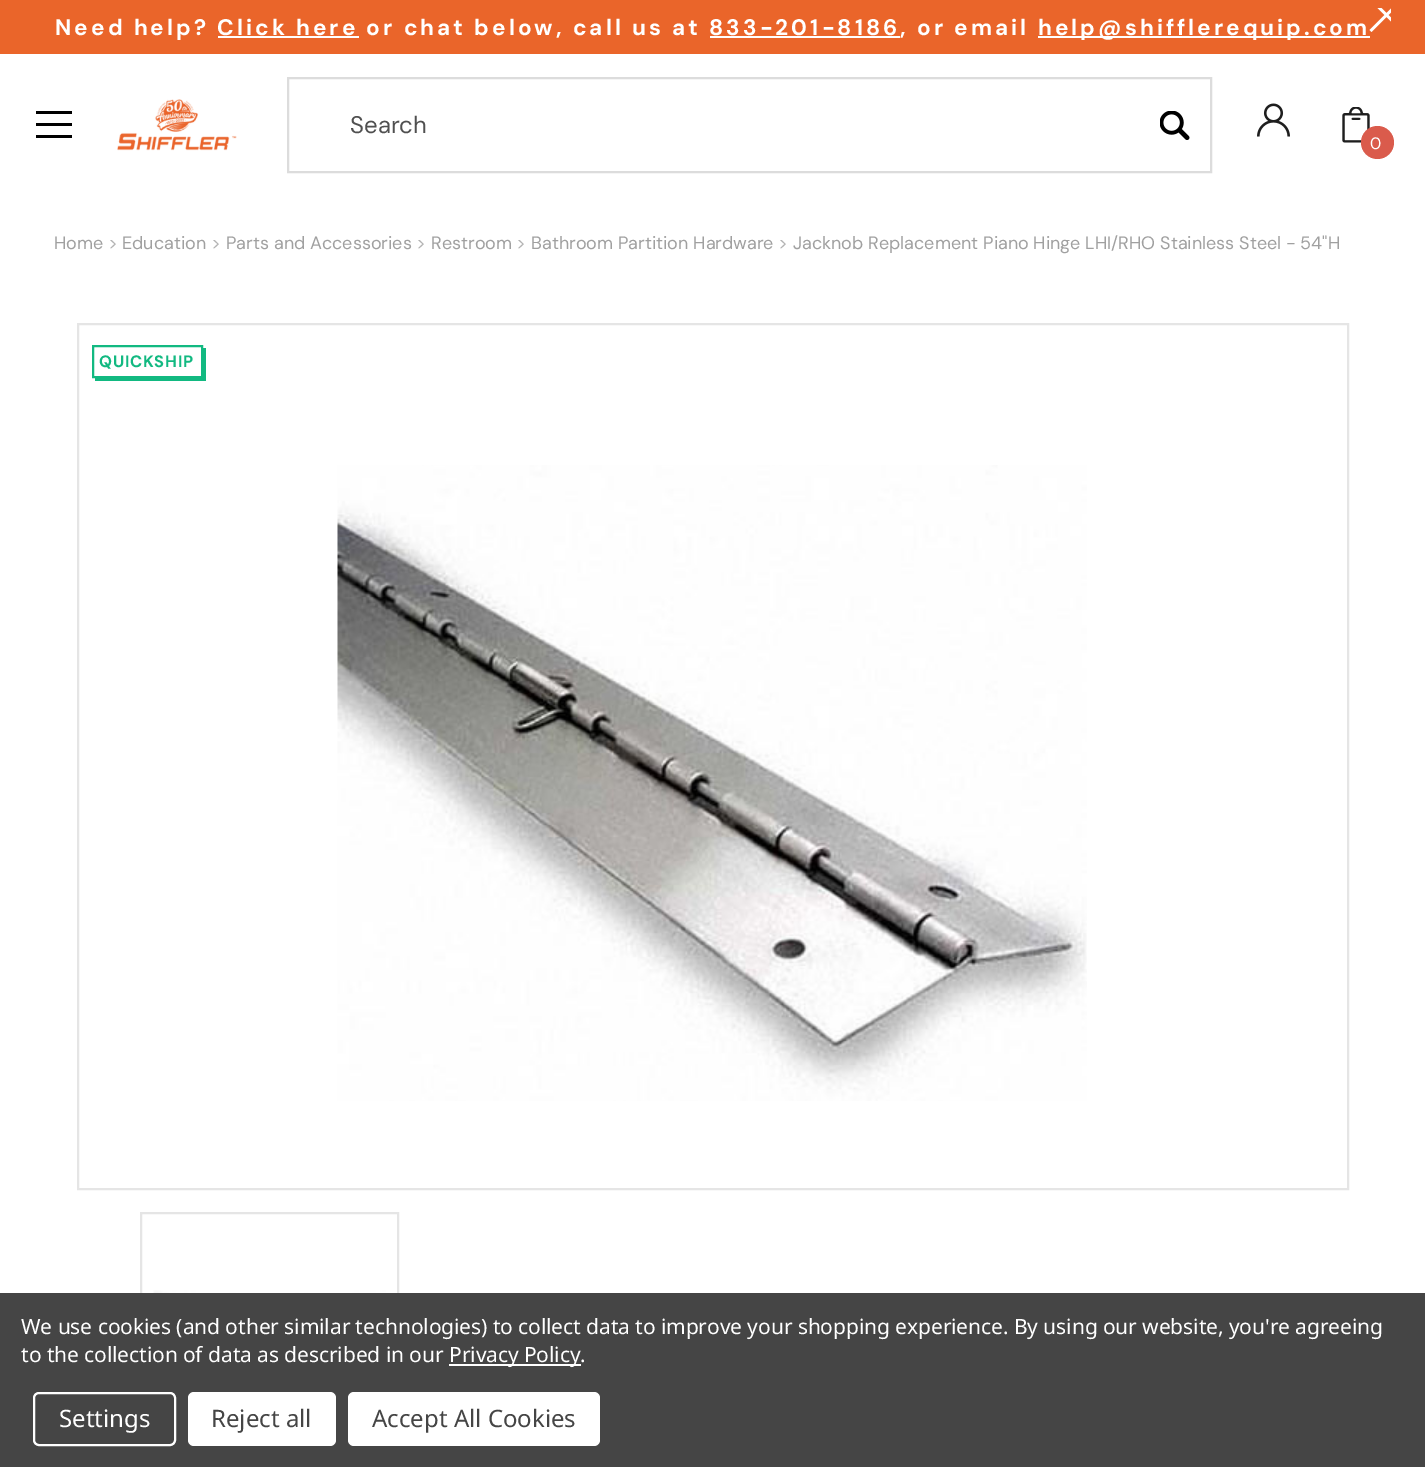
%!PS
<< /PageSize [1425 1467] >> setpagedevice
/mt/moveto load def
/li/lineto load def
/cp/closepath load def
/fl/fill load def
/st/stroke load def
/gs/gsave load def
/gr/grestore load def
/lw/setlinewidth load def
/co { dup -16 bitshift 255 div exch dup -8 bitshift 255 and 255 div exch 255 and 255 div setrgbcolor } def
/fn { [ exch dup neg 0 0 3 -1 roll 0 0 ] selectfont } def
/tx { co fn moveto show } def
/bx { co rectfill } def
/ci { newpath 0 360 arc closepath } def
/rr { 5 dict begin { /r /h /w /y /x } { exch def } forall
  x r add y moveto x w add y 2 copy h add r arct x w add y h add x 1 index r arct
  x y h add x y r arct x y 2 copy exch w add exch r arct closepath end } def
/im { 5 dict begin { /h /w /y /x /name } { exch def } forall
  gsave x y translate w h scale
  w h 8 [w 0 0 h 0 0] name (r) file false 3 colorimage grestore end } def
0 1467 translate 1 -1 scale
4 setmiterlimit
0 0 1425 1467 16#FFFFFF bx
0 0 1425 54 16#EA652A bx
1038 36 332 2 16#FFFFFF bx
218 36 141 2 16#FFFFFF bx
710 36 190 2 16#FFFFFF bx
gs
1368 8 23 39 rectclip
1403.5 0 mt 1401.5 -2 li 1386.5 13 li 1371.5 -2 li 1369.5 0 li 1384.5 15 li 1369.5 30 li 1371.5 32 li 1386.5 17 li 1401.5 32 li 1403.5 30 li 1388.5 15 li cp fl
gr
36 123 36 3 16#000000 bx
36 111 36 3 16#000000 bx
36 135 36 3 16#000000 bx
(media/1.raw) 117 99 120 52 im
16#DCDCDC co
2 lw
288 78 923 94 rectstroke
(media/2.raw) 1160 111 30 29 im
(media/3.raw) 1257 103 33 34 im
(media/4.raw) 1342 107 28 36 im
16#DA5B4C co
1377.5 142.5 16.5 ci fl
16#E5E5E5 co
78 324 1270 865 rectstroke
(media/5.raw) 337 465 750 636 im
141 1213 257 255 rectstroke
(media/6.raw) 153 1290 233 3 im
16#12B981 co
95 378 mt 95 381 li 206 381 li 206 348 li 202 348 li 202 378 li cp fl
93 346 109 31 rectstroke
0 1293 1425 174 16#454545 bx
449 1364 132 2 16#FFFFFF bx
34 1393 141 52 5 rr st
188 1392 148 54 6 rr fl
348 1392 252 54 6 rr fl
/DMSans-Bold 22.5 fn
55 35 mt 3 0 (Need help? Click here or chat below, call us at 833-201-8186, or email) ashow
1038 35 mt 3 0 (help@shifflerequip.com) ashow
(Search) 350 133 /DMSans-Regular 24 16#505050 tx
/DMSans-Regular 16.5 fn
16#FFFFFF co
1370 149 mt 3 0 (0) ashow
(Home) 54 249 /DMSans-Regular 18 16#A0A0A0 tx
(>) 108 249 /DMSans-Regular 18 16#B4B4B4 tx
(Education) 122 249 /DMSans-Regular 18 16#A0A0A0 tx
(>) 211 249 /DMSans-Regular 18 16#B4B4B4 tx
(Parts and Accessories) 226 249 /DMSans-Regular 18 16#A0A0A0 tx
(>) 416 249 /DMSans-Regular 18 16#B4B4B4 tx
(Restroom) 431 249 /DMSans-Regular 18 16#A0A0A0 tx
(>) 516 249 /DMSans-Regular 18 16#B4B4B4 tx
(Bathroom Partition Hardware) 531 249 /DMSans-Regular 18 16#A0A0A0 tx
(>) 778 249 /DMSans-Regular 18 16#B4B4B4 tx
(Jacknob Replacement Piano Hinge LHI/RHO Stainless Steel - 54"H) 793 249 /DMSans-Regular 18 16#A0A0A0 tx
/DMSans-Bold 16.5 fn
16#12B981 co
99 367 mt .75 0 (QUICKSHIP) ashow
/NotoSans-Regular 21 fn
16#FFFFFF co
21 1334 mt -.08 0 (We use cookies \(and other similar technologies\) to collect data to improve your shopping experience. By using our website, you're agreeing) ashow
21 1362 mt -.08 0 (to the collection of data as described in our) ashow
449 1362 mt -.08 0 (Privacy Policy.) ashow
(Settings) 59 1427 /NotoSans-Regular 24 16#FFFFFF tx
(Reject all) 211 1427 /NotoSans-Regular 24 16#454545 tx
(Accept All Cookies) 372 1427 /NotoSans-Regular 24 16#454545 tx
showpage
